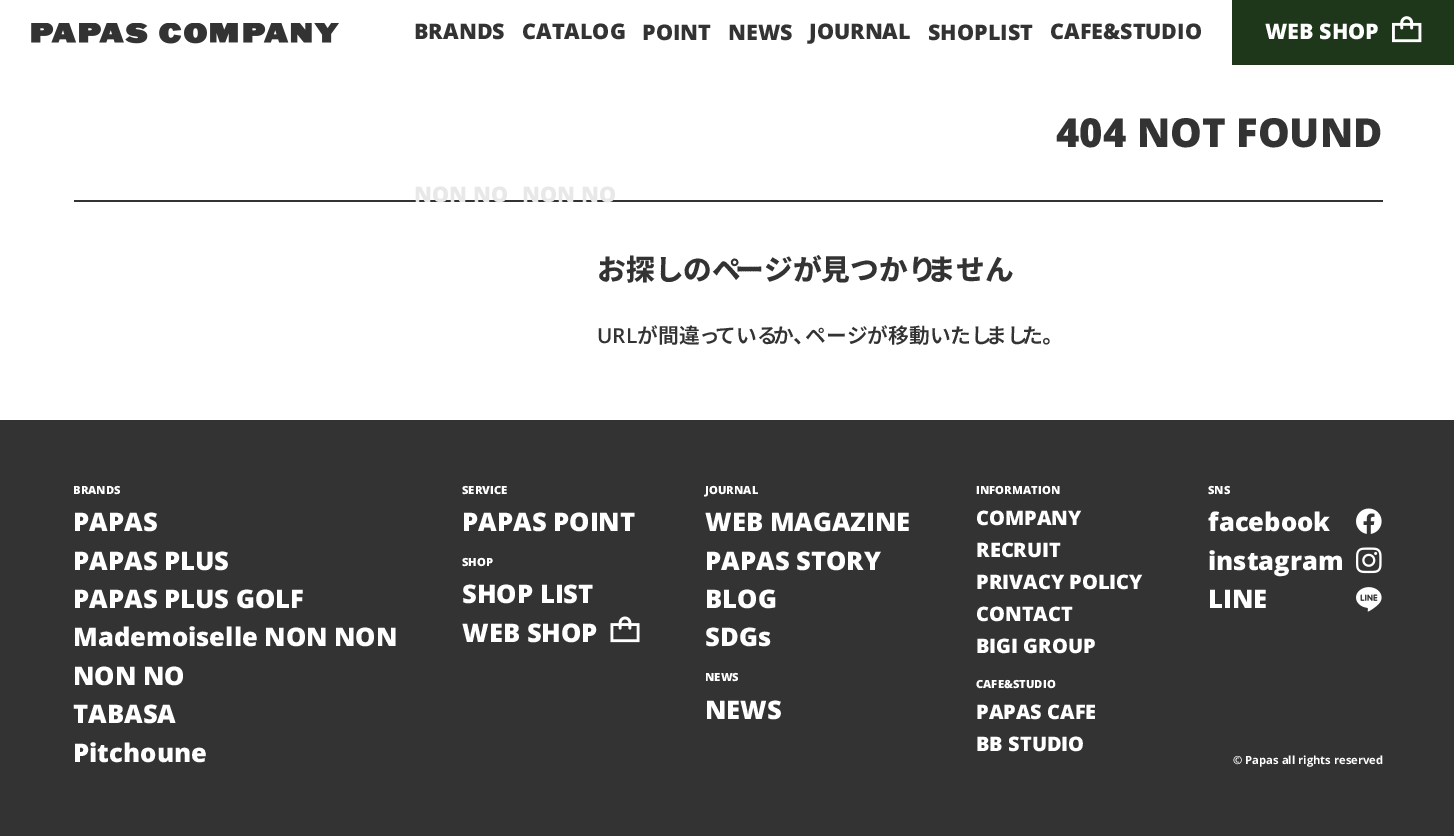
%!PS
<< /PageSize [1454 836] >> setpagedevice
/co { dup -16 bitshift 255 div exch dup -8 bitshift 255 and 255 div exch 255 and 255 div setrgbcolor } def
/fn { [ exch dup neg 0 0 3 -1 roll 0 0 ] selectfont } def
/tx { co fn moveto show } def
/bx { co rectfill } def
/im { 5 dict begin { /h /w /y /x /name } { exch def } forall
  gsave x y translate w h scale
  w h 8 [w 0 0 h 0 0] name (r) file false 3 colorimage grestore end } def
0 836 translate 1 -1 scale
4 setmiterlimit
0 0 1454 836 16#FFFFFF bx
(media/1.raw) 31 23 308 21 im
1232 0 222 65 16#1E371A bx
(media/2.raw) 1392 16 30 27 im
74 200 1309 2 16#333333 bx
0 420 1454 416 16#333333 bx
(media/3.raw) 610 616 30 27 im
(media/4.raw) 1356 508 26 26 im
(media/5.raw) 1356 547 26 27 im
(media/6.raw) 1356 587 26 25 im
(BRANDS) 414 39 /OpenSans-ExtraBold 21.5 16#333333 tx
(NON NO) 414 202 /OpenSans-ExtraBold 21.5 16#E8E8E8 tx
(CATALOG) 522 39 /OpenSans-ExtraBold 21.5 16#333333 tx
(NON NO) 522 202 /OpenSans-ExtraBold 21.5 16#E8E8E8 tx
(POINT) 642 40 /OpenSans-ExtraBold 21.5 16#333333 tx
(NEWS) 728 40 /OpenSans-ExtraBold 21.5 16#333333 tx
(JOURNAL) 809 39 /OpenSans-ExtraBold 21.5 16#333333 tx
(SHOPLIST) 928 40 /OpenSans-ExtraBold 21.5 16#333333 tx
(CAFE&STUDIO) 1050 39 /OpenSans-ExtraBold 21.5 16#333333 tx
(WEB SHOP) 1265 39 /OpenSans-ExtraBold 21.5 16#FFFFFF tx
(404 NOT FOUND) 1056 147 /OpenSans-ExtraBold 40 16#333333 tx
(お探しのペ) 597 280 /NotoSansJP-ExtraBold 28.75 16#333333 tx
(ージが見つかり) 735 280 /NotoSansJP-ExtraBold 28.75 16#333333 tx
(ません) 927 280 /NotoSansJP-ExtraBold 28.75 16#333333 tx
(URL) 597 343 /OpenSans-SemiBold 20.75 16#333333 tx
(が間違っ) 637 343 /NotoSansJP-SemiBold 20.75 16#333333 tx
(ている) 715 343 /NotoSansJP-SemiBold 20.75 16#333333 tx
(か) 773 343 /NotoSansJP-SemiBold 20.75 16#333333 tx
(、) 793 343 /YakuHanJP-Bold 20.75 16#333333 tx
(ページが移動いたし) 805 343 /NotoSansJP-SemiBold 20.75 16#333333 tx
(まし) 986 343 /NotoSansJP-SemiBold 20.75 16#333333 tx
(た) 1022 343 /NotoSansJP-SemiBold 20.75 16#333333 tx
(。) 1042 343 /YakuHanJP-Bold 20.75 16#333333 tx
(BRANDS) 73 494 /OpenSans-ExtraBold 11.25 16#FFFFFF tx
(PAPAS) 73 531 /OpenSans-ExtraBold 25.6 16#FFFFFF tx
(PAPAS PLUS) 73 570 /OpenSans-ExtraBold 25.6 16#FFFFFF tx
(PAPAS PLUS GOLF) 73 608 /OpenSans-ExtraBold 25.6 16#FFFFFF tx
(Mademoiselle NON NON) 73 646 /OpenSans-ExtraBold 25.6 16#FFFFFF tx
(NON NO) 73 685 /OpenSans-ExtraBold 25.6 16#FFFFFF tx
(TABASA) 73 723 /OpenSans-ExtraBold 25.6 16#FFFFFF tx
(Pitchoune) 73 762 /OpenSans-ExtraBold 25.6 16#FFFFFF tx
(SERVICE) 462 494 /OpenSans-ExtraBold 11.25 16#FFFFFF tx
(PAPAS POINT) 462 531 /OpenSans-ExtraBold 25.6 16#FFFFFF tx
(SHOP) 462 566 /OpenSans-ExtraBold 11.25 16#FFFFFF tx
(SHOP LIST) 462 603 /OpenSans-ExtraBold 25.6 16#FFFFFF tx
(WEB SHOP) 462 642 /OpenSans-ExtraBold 25.6 16#FFFFFF tx
(JOURNAL) 705 494 /OpenSans-ExtraBold 11.25 16#FFFFFF tx
(WEB MAGAZINE) 705 531 /OpenSans-ExtraBold 25.6 16#FFFFFF tx
(PAPAS STORY) 705 570 /OpenSans-ExtraBold 25.6 16#FFFFFF tx
(BLOG) 705 608 /OpenSans-ExtraBold 25.6 16#FFFFFF tx
(SDGs) 705 646 /OpenSans-ExtraBold 25.6 16#FFFFFF tx
(NEWS) 705 681 /OpenSans-ExtraBold 11.25 16#FFFFFF tx
(NEWS) 705 719 /OpenSans-ExtraBold 25.6 16#FFFFFF tx
(INFORMATION) 976 494 /OpenSans-ExtraBold 11.25 16#FFFFFF tx
(COMPANY) 976 525 /OpenSans-ExtraBold 20 16#FFFFFF tx
(RECRUIT) 976 557 /OpenSans-ExtraBold 20 16#FFFFFF tx
(PRIVACY POLICY) 976 589 /OpenSans-ExtraBold 20 16#FFFFFF tx
(CONTACT) 976 621 /OpenSans-ExtraBold 20 16#FFFFFF tx
(BIGI GROUP) 976 653 /OpenSans-ExtraBold 20 16#FFFFFF tx
(CAFE&STUDIO) 976 688 /OpenSans-ExtraBold 11.25 16#FFFFFF tx
(PAPAS CAFE) 976 719 /OpenSans-ExtraBold 20 16#FFFFFF tx
(BB STUDIO) 976 751 /OpenSans-ExtraBold 20 16#FFFFFF tx
(SNS) 1208 494 /OpenSans-ExtraBold 11.25 16#FFFFFF tx
(facebook) 1208 531 /OpenSans-ExtraBold 25.6 16#FFFFFF tx
(instagram) 1208 570 /OpenSans-ExtraBold 25.6 16#FFFFFF tx
(LINE) 1208 608 /OpenSans-ExtraBold 25.6 16#FFFFFF tx
(© Papas all rights reserved) 1233 764 /OpenSans-Bold 11.25 16#FFFFFF tx
showpage
